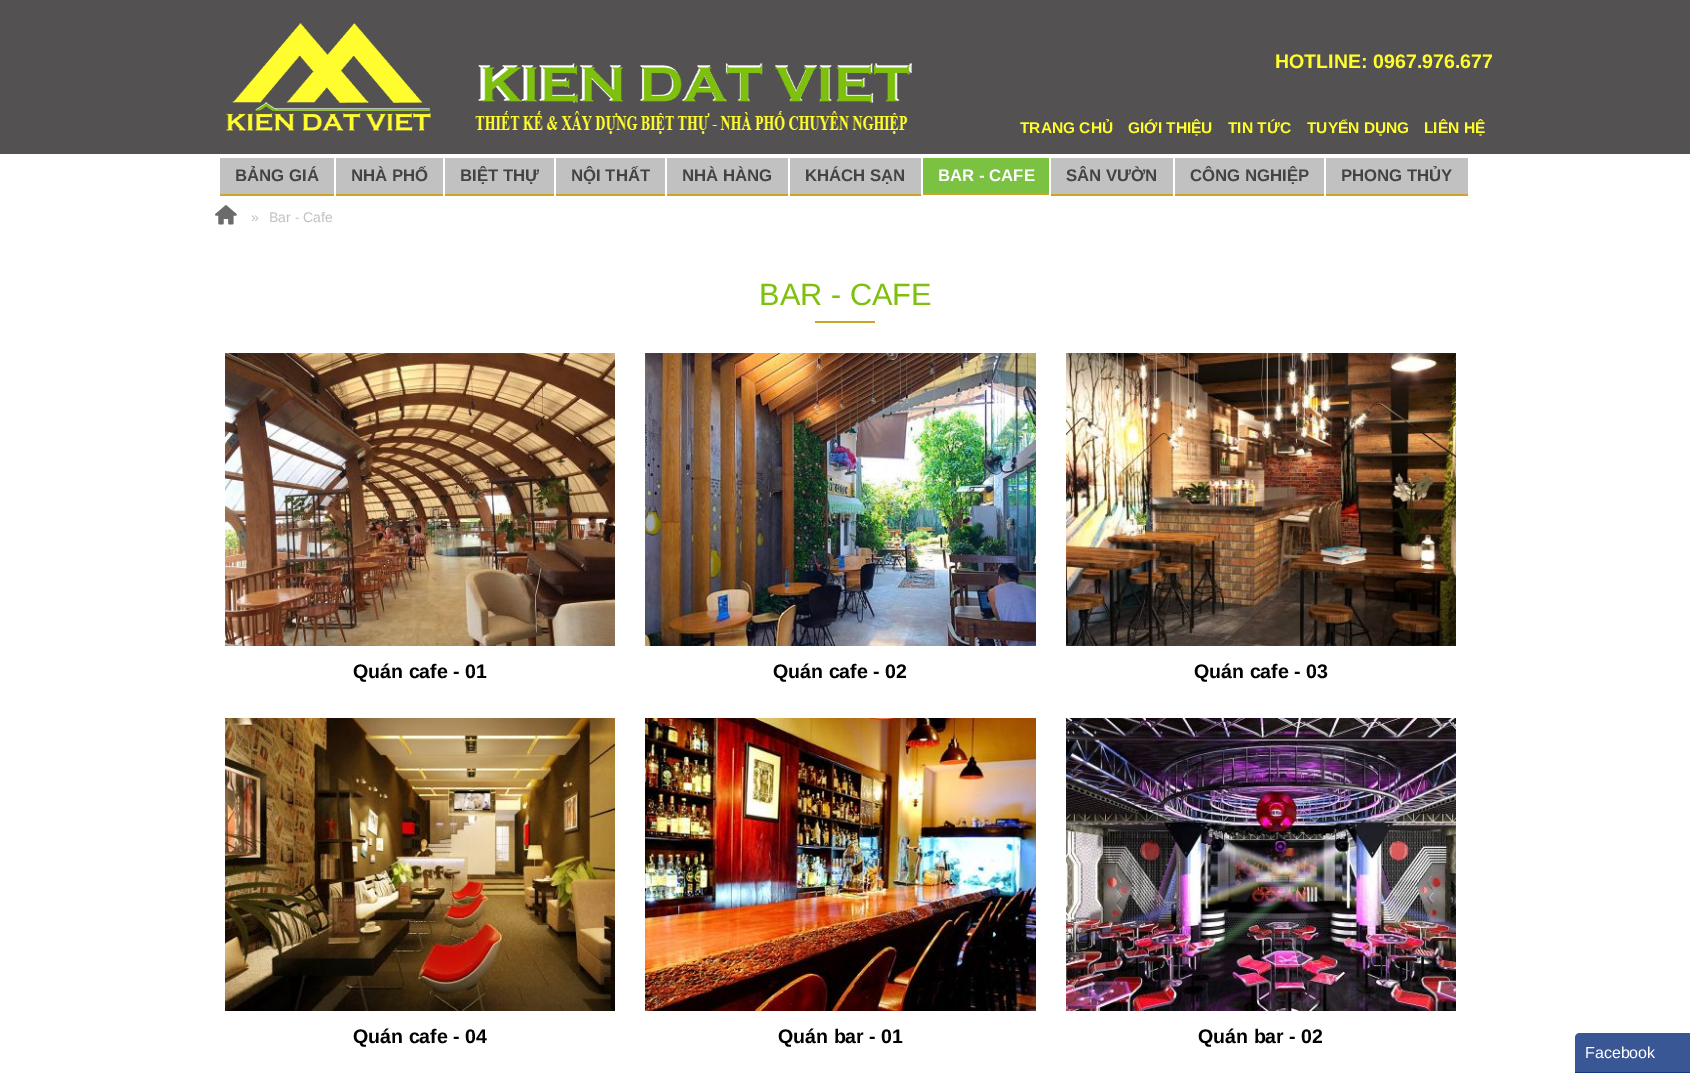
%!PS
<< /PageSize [1690 1073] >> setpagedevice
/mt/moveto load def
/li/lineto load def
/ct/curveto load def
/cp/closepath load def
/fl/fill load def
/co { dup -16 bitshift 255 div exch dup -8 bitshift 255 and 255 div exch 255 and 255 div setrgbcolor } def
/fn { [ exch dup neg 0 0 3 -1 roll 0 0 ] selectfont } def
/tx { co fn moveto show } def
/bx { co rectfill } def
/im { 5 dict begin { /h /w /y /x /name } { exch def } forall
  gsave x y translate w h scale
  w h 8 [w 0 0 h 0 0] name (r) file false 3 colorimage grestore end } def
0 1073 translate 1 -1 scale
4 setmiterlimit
0 0 1690 1073 16#FFFFFF bx
0 0 1690 154 16#535151 bx
(media/1.raw) 226 23 686 111 im
220 158 114 36 16#C1C1C1 bx
220 194 114 2 16#CEA428 bx
336 158 107 36 16#C1C1C1 bx
336 194 107 2 16#CEA428 bx
445 158 109 36 16#C1C1C1 bx
445 194 109 2 16#CEA428 bx
556 158 109 36 16#C1C1C1 bx
556 194 109 2 16#CEA428 bx
667 158 121 36 16#C1C1C1 bx
667 194 121 2 16#CEA428 bx
790 158 131 36 16#C1C1C1 bx
790 194 131 2 16#CEA428 bx
923 158 126 35 16#7BC142 bx
923 193 126 2 16#CEA428 bx
1051 158 122 36 16#C1C1C1 bx
1051 194 122 2 16#CEA428 bx
1175 158 149 36 16#C1C1C1 bx
1175 194 149 2 16#CEA428 bx
1326 158 142 36 16#C1C1C1 bx
1326 194 142 2 16#CEA428 bx
(media/2.raw) 215 204 22 21 im
815 321 60 2 16#CEA428 bx
(media/3.raw) 225 353 390 293 im
(media/4.raw) 645 353 391 293 im
(media/5.raw) 1066 353 390 293 im
(media/6.raw) 225 718 390 293 im
(media/7.raw) 645 718 391 293 im
(media/8.raw) 1066 718 390 293 im
16#3A5795 co
1580 1033 mt 1690 1033 li 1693 1033 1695 1035 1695 1038 ct 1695 1073 li 1575 1073 li 1575 1038 li 1575 1035 1577 1033 1580 1033 ct cp fl
1575 1072 115 1 16#133783 bx
(HOTLINE: 0967.976.677) 1275 68 /LiberationSans-Bold 19.6 16#FFFD2E tx
(TRANG CHỦ) 1020 133 /LiberationSans-Bold 15.5 16#FFFD2E tx
(GIỚI THIỆU) 1128 133 /LiberationSans-Bold 15.5 16#FFFD2E tx
(TIN TỨC) 1228 133 /LiberationSans-Bold 15.5 16#FFFD2E tx
(TUYỂN DỤNG) 1307 133 /LiberationSans-Bold 15.5 16#FFFD2E tx
(LIÊN HỆ) 1424 133 /LiberationSans-Bold 15.5 16#FFFD2E tx
(BẢNG GIÁ) 235 181 /LiberationSans-Bold 16.75 16#444444 tx
(NHÀ PHỐ) 351 181 /LiberationSans-Bold 16.75 16#444444 tx
(BIỆT THỰ) 460 181 /LiberationSans-Bold 16.75 16#444444 tx
(NỘI THẤT) 571 181 /LiberationSans-Bold 16.75 16#444444 tx
(NHÀ HÀNG) 682 181 /LiberationSans-Bold 16.75 16#444444 tx
(KHÁCH SẠN) 805 181 /LiberationSans-Bold 16.75 16#444444 tx
(BAR - CAFE) 938 181 /LiberationSans-Bold 16.75 16#FFFFFF tx
(SÂN VƯỜN) 1066 181 /LiberationSans-Bold 16.75 16#444444 tx
(CÔNG NGHIỆP) 1190 181 /LiberationSans-Bold 16.75 16#444444 tx
(PHONG THỦY) 1341 181 /LiberationSans-Bold 16.75 16#444444 tx
(») 251 222 /LiberationSans-Regular 14 16#C0C0C0 tx
(Bar - Cafe) 269 222 /LiberationSans-Regular 14 16#C0C0C0 tx
(BAR - CAFE) 759 305 /LiberationSans-Regular 30.75 16#7FC00E tx
(Quán cafe - 01) 353 678 /LiberationSans-Bold 19.6 16#000000 tx
(Quán cafe - 02) 773 678 /LiberationSans-Bold 19.6 16#000000 tx
(Quán cafe - 03) 1194 678 /LiberationSans-Bold 19.6 16#000000 tx
(Quán cafe - 04) 353 1043 /LiberationSans-Bold 19.6 16#000000 tx
(Quán bar - 01) 778 1043 /LiberationSans-Bold 19.6 16#000000 tx
(Quán bar - 02) 1198 1043 /LiberationSans-Bold 19.6 16#000000 tx
(Facebook) 1585 1058 /LiberationSans-Regular 16 16#FFFFFF tx
showpage
